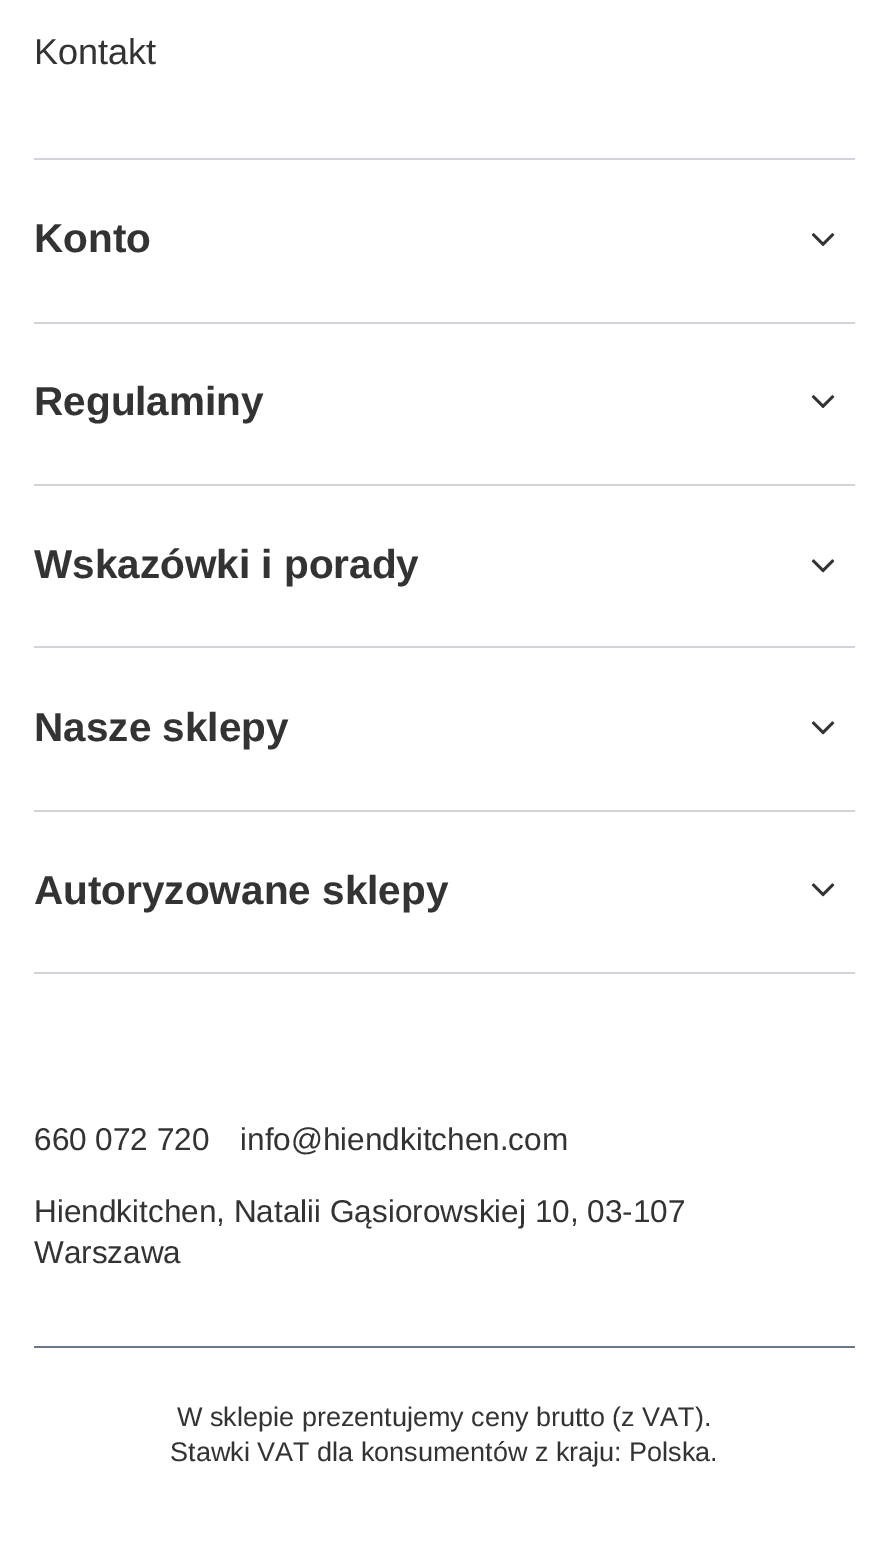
%!PS
<< /PageSize [887 1549] >> setpagedevice
/co { dup -16 bitshift 255 div exch dup -8 bitshift 255 and 255 div exch 255 and 255 div setrgbcolor } def
/fn { [ exch dup neg 0 0 3 -1 roll 0 0 ] selectfont } def
/tx { co fn moveto show } def
/bx { co rectfill } def
/im { 5 dict begin { /h /w /y /x /name } { exch def } forall
  gsave x y translate w h scale
  w h 8 [w 0 0 h 0 0] name (r) file false 3 colorimage grestore end } def
0 1549 translate 1 -1 scale
4 setmiterlimit
0 0 887 1549 16#FFFFFF bx
34 158 821 2 16#D1D5DB bx
34 322 821 2 16#D1D5DB bx
(media/1.raw) 811 233 24 14 im
34 484 821 2 16#D1D5DB bx
(media/1.raw) 811 395 24 14 im
34 646 821 2 16#D1D5DB bx
(media/2.raw) 811 559 24 14 im
34 810 821 2 16#D1D5DB bx
(media/2.raw) 811 721 24 14 im
34 972 821 2 16#D1D5DB bx
(media/2.raw) 811 883 24 14 im
34 1346 821 2 16#6B7785 bx
(Kontakt) 34 64 /LiberationSans-Regular 36 16#333333 tx
(Konto) 34 252 /LiberationSans-Bold 40.5 16#333333 tx
(Regulaminy) 34 415 /LiberationSans-Bold 40.5 16#333333 tx
(Wskazówki i porady) 34 578 /LiberationSans-Bold 40.5 16#333333 tx
(Nasze sklepy) 34 741 /LiberationSans-Bold 40.5 16#333333 tx
(Autoryzowane sklepy) 34 904 /LiberationSans-Bold 40.5 16#333333 tx
(660 072 720) 34 1150 /LiberationSans-Regular 31.5 16#333333 tx
(info@hiendkitchen.com) 240 1150 /LiberationSans-Regular 31.5 16#333333 tx
(Hiendkitchen, Natalii Gąsiorowskiej 10, 03-107) 34 1222 /LiberationSans-Regular 31.5 16#333333 tx
(Warszawa) 34 1263 /LiberationSans-Regular 31.5 16#333333 tx
(W sklepie prezentujemy ceny brutto \(z VAT\).) 177 1426 /LiberationSans-Regular 27 16#333333 tx
(Stawki VAT dla konsumentów z kraju: Polska.) 170 1461 /LiberationSans-Regular 27 16#333333 tx
showpage
